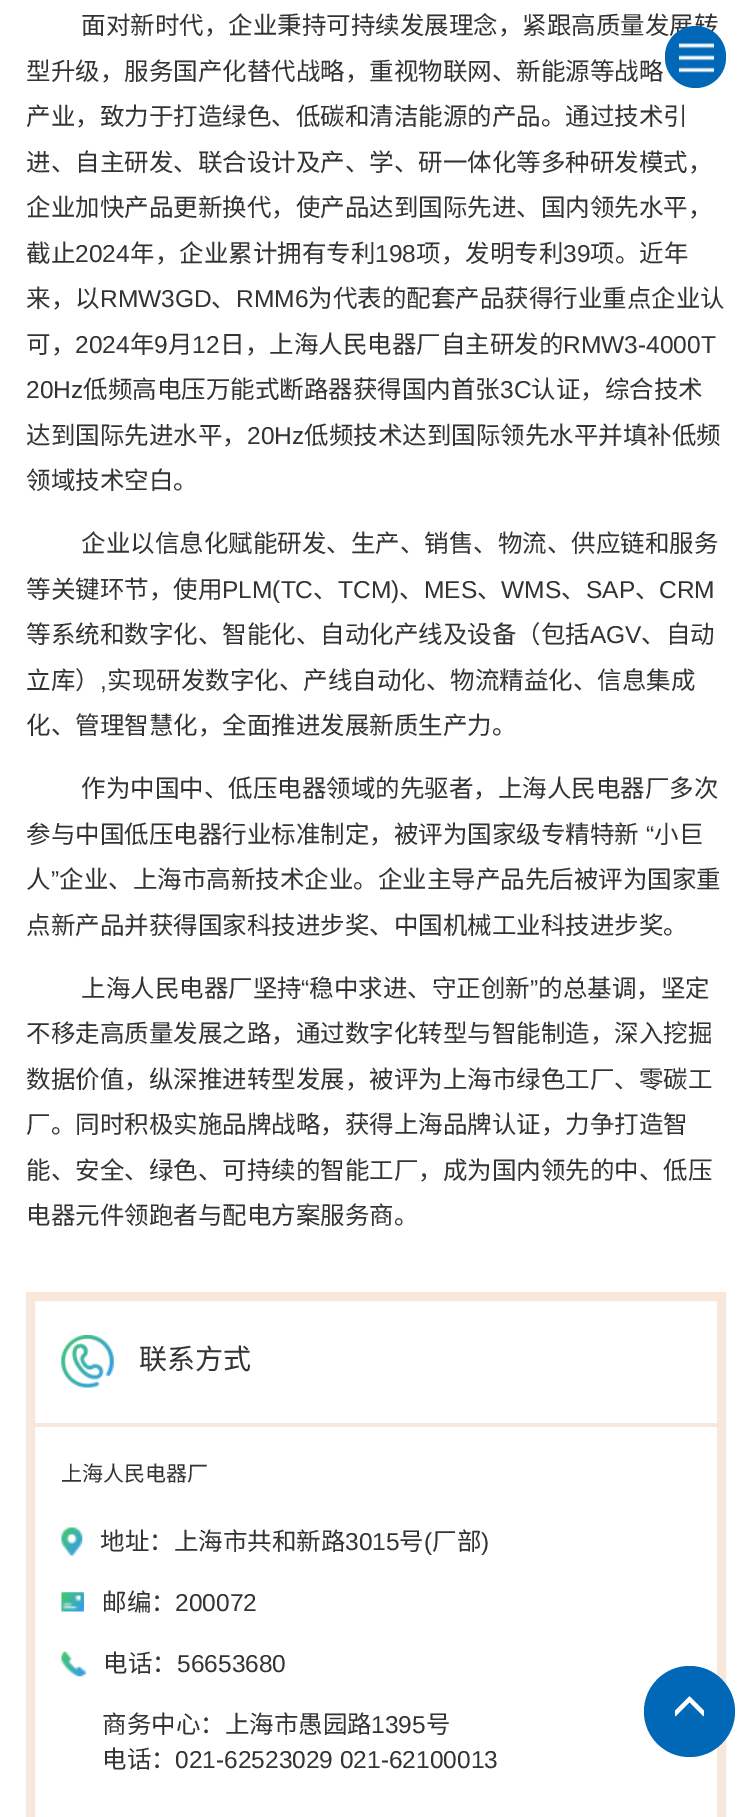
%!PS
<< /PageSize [752 1817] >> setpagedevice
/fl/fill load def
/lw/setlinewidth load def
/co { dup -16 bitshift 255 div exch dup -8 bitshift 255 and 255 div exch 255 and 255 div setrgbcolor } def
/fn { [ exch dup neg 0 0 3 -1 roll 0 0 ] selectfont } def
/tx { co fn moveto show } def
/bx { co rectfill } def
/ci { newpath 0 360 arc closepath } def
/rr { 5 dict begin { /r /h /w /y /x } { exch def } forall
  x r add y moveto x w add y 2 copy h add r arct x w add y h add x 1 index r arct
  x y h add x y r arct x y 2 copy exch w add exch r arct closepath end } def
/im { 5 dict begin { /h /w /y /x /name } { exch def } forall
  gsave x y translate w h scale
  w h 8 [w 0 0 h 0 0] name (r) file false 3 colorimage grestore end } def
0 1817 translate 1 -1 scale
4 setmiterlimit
0 0 752 1817 16#FFFFFF bx
16#F8E8DB co
9 lw
30.5 1296.5 691 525 rectstroke
35 1423 683 4 16#F8E8DB bx
(media/1.raw) 61 1335 53 53 im
(media/2.raw) 61 1527 22 29 im
(media/3.raw) 61 1592 23 20 im
(media/4.raw) 61 1651 25 26 im
16#0068B7 co
689.5 1711.5 45.5 ci fl
(media/6.raw) 674 1696 31 21 im
(面对新时代，企业秉持可持续发展理念，紧跟高质量发展转) 81 34 /NotoSansCJKSC-Regular 24.5 16#333333 tx
(型升级，服务国产化替代战略，重视物联网、新能源等战略) 26 80 /NotoSansCJKSC-Regular 24.5 16#333333 tx
(产业，致力于打造绿色、低碳和清洁能源的产品。通过技术引) 26 125 /NotoSansCJKSC-Regular 24.5 16#333333 tx
(进、自主研发、联合设计及产、学、研一体化等多种研发模式，) 26 171 /NotoSansCJKSC-Regular 24.5 16#333333 tx
(企业加快产品更新换代，使产品达到国际先进、国内领先水平，) 26 216 /NotoSansCJKSC-Regular 24.5 16#333333 tx
(截止) 26 262 /NotoSansCJKSC-Regular 24.5 16#333333 tx
(2024) 75 262 /LiberationSans-Regular 24.5 16#333333 tx
(年，企业累计拥有专利) 130 262 /NotoSansCJKSC-Regular 24.5 16#333333 tx
(198) 375 262 /LiberationSans-Regular 24.5 16#333333 tx
(项，发明专利) 416 262 /NotoSansCJKSC-Regular 24.5 16#333333 tx
(39) 563 262 /LiberationSans-Regular 24.5 16#333333 tx
(项。近年) 590 262 /NotoSansCJKSC-Regular 24.5 16#333333 tx
(来，以) 26 307 /NotoSansCJKSC-Regular 24.5 16#333333 tx
(RMW3GD) 100 307 /LiberationSans-Regular 24.5 16#333333 tx
(、) 211 307 /NotoSansCJKSC-Regular 24.5 16#333333 tx
(RMM6) 236 307 /LiberationSans-Regular 24.5 16#333333 tx
(为代表的配套产品获得行业重点企业认) 308 307 /NotoSansCJKSC-Regular 24.5 16#333333 tx
(可，) 26 353 /NotoSansCJKSC-Regular 24.5 16#333333 tx
(2024) 75 353 /LiberationSans-Regular 24.5 16#333333 tx
(年) 130 353 /NotoSansCJKSC-Regular 24.5 16#333333 tx
(9) 154 353 /LiberationSans-Regular 24.5 16#333333 tx
(月) 168 353 /NotoSansCJKSC-Regular 24.5 16#333333 tx
(12) 192 353 /LiberationSans-Regular 24.5 16#333333 tx
(日，上海人民电器厂自主研发的) 220 353 /NotoSansCJKSC-Regular 24.5 16#333333 tx
(RMW3-4000T) 563 353 /LiberationSans-Regular 24.5 16#333333 tx
(20Hz) 26 398 /LiberationSans-Regular 24.5 16#333333 tx
(低频高电压万能式断路器获得国内首张) 83 398 /NotoSansCJKSC-Regular 24.5 16#333333 tx
(3C) 500 398 /LiberationSans-Regular 24.5 16#333333 tx
(认证，综合技术) 531 398 /NotoSansCJKSC-Regular 24.5 16#333333 tx
(达到国际先进水平，) 26 444 /NotoSansCJKSC-Regular 24.5 16#333333 tx
(20Hz) 247 444 /LiberationSans-Regular 24.5 16#333333 tx
(低频技术达到国际领先水平并填补低频) 304 444 /NotoSansCJKSC-Regular 24.5 16#333333 tx
(领域技术空白。) 26 489 /NotoSansCJKSC-Regular 24.5 16#333333 tx
(企业以信息化赋能研发、生产、销售、物流、供应链和服务) 81 552 /NotoSansCJKSC-Regular 24.5 16#333333 tx
(等关键环节，使用) 26 598 /NotoSansCJKSC-Regular 24.5 16#333333 tx
(PLM\(TC) 222 598 /LiberationSans-Regular 24.5 16#333333 tx
(、) 313 598 /NotoSansCJKSC-Regular 24.5 16#333333 tx
(TCM\)) 338 598 /LiberationSans-Regular 24.5 16#333333 tx
(、) 399 598 /NotoSansCJKSC-Regular 24.5 16#333333 tx
(MES) 424 598 /LiberationSans-Regular 24.5 16#333333 tx
(、) 477 598 /NotoSansCJKSC-Regular 24.5 16#333333 tx
(WMS) 501 598 /LiberationSans-Regular 24.5 16#333333 tx
(、) 561 598 /NotoSansCJKSC-Regular 24.5 16#333333 tx
(SAP) 586 598 /LiberationSans-Regular 24.5 16#333333 tx
(、) 635 598 /NotoSansCJKSC-Regular 24.5 16#333333 tx
(CRM) 659 598 /LiberationSans-Regular 24.5 16#333333 tx
(等系统和数字化、智能化、自动化产线及设备（包括) 26 643 /NotoSansCJKSC-Regular 24.5 16#333333 tx
(AGV) 590 643 /LiberationSans-Regular 24.5 16#333333 tx
(、自动) 641 643 /NotoSansCJKSC-Regular 24.5 16#333333 tx
(立库）) 26 689 /NotoSansCJKSC-Regular 24.5 16#333333 tx
(,) 100 689 /LiberationSans-Regular 24.5 16#333333 tx
(实现研发数字化、产线自动化、物流精益化、信息集成) 107 689 /NotoSansCJKSC-Regular 24.5 16#333333 tx
(化、管理智慧化，全面推进发展新质生产力。) 26 734 /NotoSansCJKSC-Regular 24.5 16#333333 tx
(作为中国中、低压电器领域的先驱者，上海人民电器厂多次) 81 797 /NotoSansCJKSC-Regular 24.5 16#333333 tx
(参与中国低压电器行业标准制定，被评为国家级专精特新) 26 843 /NotoSansCJKSC-Regular 24.5 16#333333 tx
(“) 646 843 /LiberationSans-Regular 24.5 16#333333 tx
(小巨) 654 843 /NotoSansCJKSC-Regular 24.5 16#333333 tx
(人) 26 888 /NotoSansCJKSC-Regular 24.5 16#333333 tx
(”) 51 888 /LiberationSans-Regular 24.5 16#333333 tx
(企业、上海市高新技术企业。企业主导产品先后被评为国家重) 59 888 /NotoSansCJKSC-Regular 24.5 16#333333 tx
(点新产品并获得国家科技进步奖、中国机械工业科技进步奖。) 26 934 /NotoSansCJKSC-Regular 24.5 16#333333 tx
(上海人民电器厂坚持) 81 997 /NotoSansCJKSC-Regular 24.5 16#333333 tx
(“) 301 997 /LiberationSans-Regular 24.5 16#333333 tx
(稳中求进、守正创新) 309 997 /NotoSansCJKSC-Regular 24.5 16#333333 tx
(”) 530 997 /LiberationSans-Regular 24.5 16#333333 tx
(的总基调，坚定) 538 997 /NotoSansCJKSC-Regular 24.5 16#333333 tx
(不移走高质量发展之路，通过数字化转型与智能制造，深入挖掘) 26 1042 /NotoSansCJKSC-Regular 24.5 16#333333 tx
(数据价值，纵深推进转型发展，被评为上海市绿色工厂、零碳工) 26 1088 /NotoSansCJKSC-Regular 24.5 16#333333 tx
(厂。同时积极实施品牌战略，获得上海品牌认证，力争打造智) 26 1133 /NotoSansCJKSC-Regular 24.5 16#333333 tx
(能、安全、绿色、可持续的智能工厂，成为国内领先的中、低压) 26 1179 /NotoSansCJKSC-Regular 24.5 16#333333 tx
(电器元件领跑者与配电方案服务商。) 26 1224 /NotoSansCJKSC-Regular 24.5 16#333333 tx
(联系方式) 139 1369 /NotoSansCJKSC-Regular 28 16#333333 tx
(上海人民电器厂) 61 1481 /NotoSansCJKSC-Regular 21 16#333333 tx
(地址：上海市共和新路) 100 1550 /NotoSansCJKSC-Regular 24.5 16#333333 tx
(3015) 345 1550 /LiberationSans-Regular 24.5 16#333333 tx
(号) 399 1550 /NotoSansCJKSC-Regular 24.5 16#333333 tx
(\() 424 1550 /LiberationSans-Regular 24.5 16#333333 tx
(厂部) 432 1550 /NotoSansCJKSC-Regular 24.5 16#333333 tx
(\)) 481 1550 /LiberationSans-Regular 24.5 16#333333 tx
(邮编：) 102 1611 /NotoSansCJKSC-Regular 24.5 16#333333 tx
(200072) 175 1611 /LiberationSans-Regular 24.5 16#333333 tx
(电话：) 103 1672 /NotoSansCJKSC-Regular 24.5 16#333333 tx
(56653680) 177 1672 /LiberationSans-Regular 24.5 16#333333 tx
(商务中心：上海市愚园路) 102 1733 /NotoSansCJKSC-Regular 24.5 16#333333 tx
(1395) 371 1733 /LiberationSans-Regular 24.5 16#333333 tx
(号) 426 1733 /NotoSansCJKSC-Regular 24.5 16#333333 tx
(电话：) 102 1768 /NotoSansCJKSC-Regular 24.5 16#333333 tx
(021-62523029 021-62100013) 175 1768 /LiberationSans-Regular 24.5 16#333333 tx
16#0068B7 co
665 26 61 62 30.5 rr fl
(media/5.raw) 679 43 35 30 im
showpage
